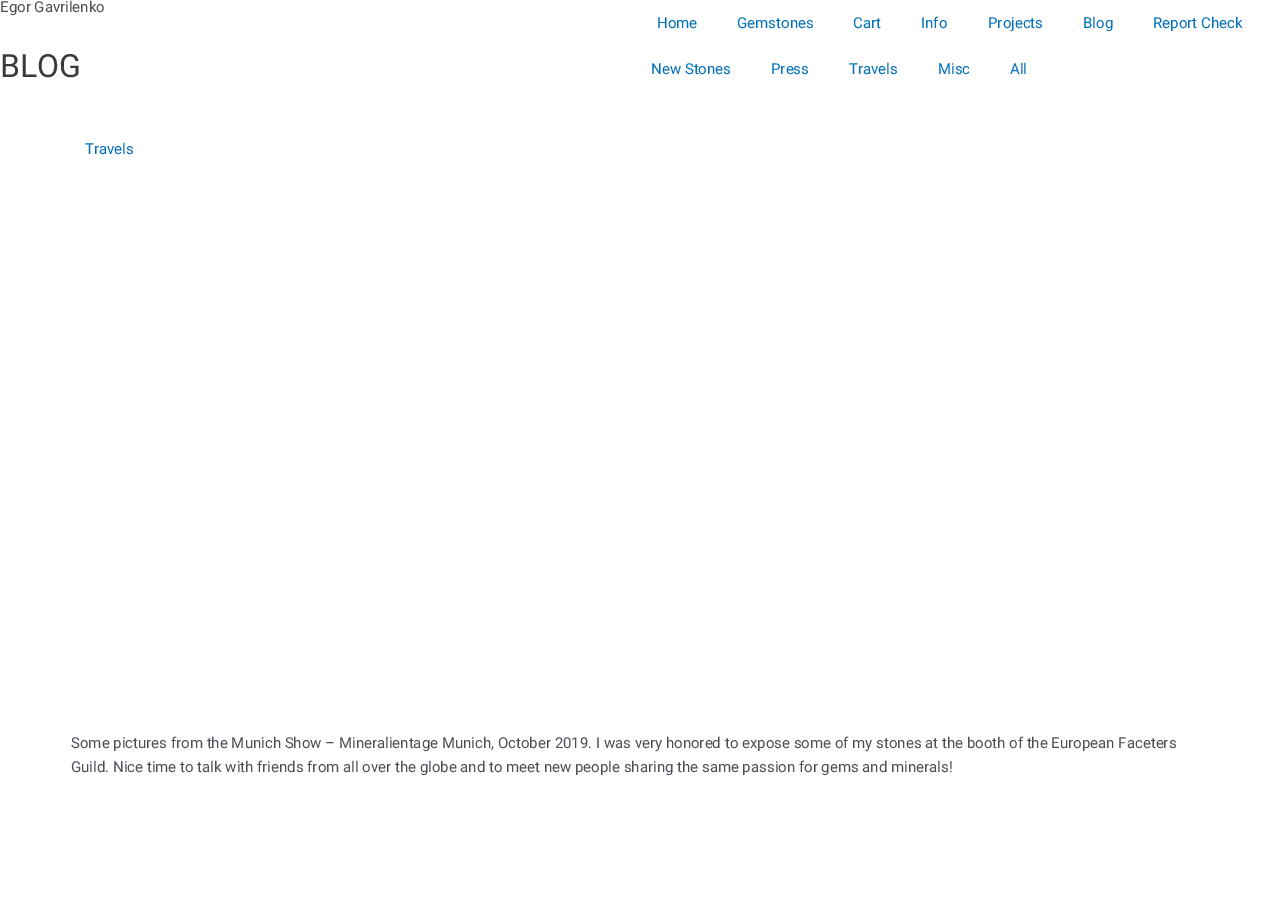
%!PS
<< /PageSize [1262 911] >> setpagedevice
/co { dup -16 bitshift 255 div exch dup -8 bitshift 255 and 255 div exch 255 and 255 div setrgbcolor } def
/fn { [ exch dup neg 0 0 3 -1 roll 0 0 ] selectfont } def
/tx { co fn moveto show } def
/bx { co rectfill } def
0 911 translate 1 -1 scale
4 setmiterlimit
0 0 1262 911 16#FFFFFF bx
(Egor Gavrilenko) 0 12 /Roboto-Regular 15 16#4B4F58 tx
(Home) 657 28 /Roboto-Regular 15 16#0170B9 tx
(Gemstones) 737 28 /Roboto-Regular 15 16#0170B9 tx
(Cart) 853 28 /Roboto-Regular 15 16#0170B9 tx
(Info) 921 28 /Roboto-Regular 15 16#0170B9 tx
(Projects) 988 28 /Roboto-Regular 15 16#0170B9 tx
(Blog) 1083 28 /Roboto-Regular 15 16#0170B9 tx
(Report Check) 1153 28 /Roboto-Regular 15 16#0170B9 tx
(BLOG) 0 77 /Roboto-Regular 32 16#3A3A3A tx
(New Stones) 651 74 /Roboto-Regular 15 16#0170B9 tx
(Press) 771 74 /Roboto-Regular 15 16#0170B9 tx
(Travels) 849 74 /Roboto-Regular 15 16#0170B9 tx
(Misc) 938 74 /Roboto-Regular 15 16#0170B9 tx
(All) 1010 74 /Roboto-Regular 15 16#0170B9 tx
(Travels) 85 154 /Roboto-Regular 15 16#0170B9 tx
(Some pictures from the Munich Show – Mineralientage Munich, October 2019. I was very honored to expose some of my stones at the booth of the European Faceters) 71 748 /Roboto-Regular 15 16#4B4F58 tx
(Guild. Nice time to talk with friends from all over the globe and to meet new people sharing the same passion for gems and minerals!) 71 772 /Roboto-Regular 15 16#4B4F58 tx
showpage
